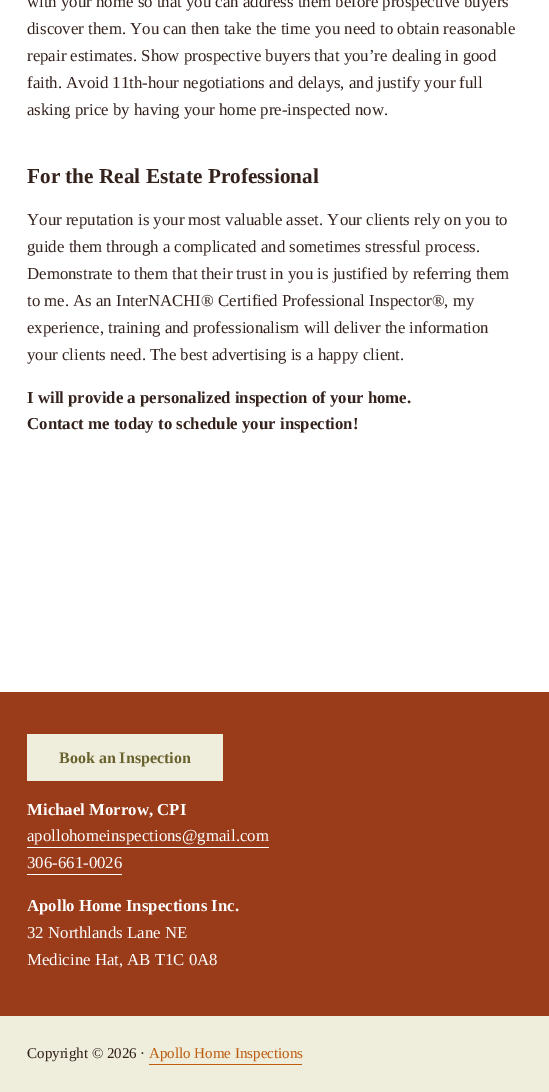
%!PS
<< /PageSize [549 1092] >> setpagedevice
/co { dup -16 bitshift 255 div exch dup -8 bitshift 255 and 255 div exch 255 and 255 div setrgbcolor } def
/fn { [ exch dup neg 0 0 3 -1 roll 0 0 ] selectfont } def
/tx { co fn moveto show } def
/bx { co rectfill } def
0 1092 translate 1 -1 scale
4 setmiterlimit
0 0 549 1092 16#FFFFFF bx
0 692 549 324 16#9A3B19 bx
27 734 196 47 16#EFEDDC bx
27 847 242 1 16#FFFFFF bx
27 874 95 1 16#FFFFFF bx
0 1016 549 76 16#EFEDDC bx
149 1064 153 1 16#BD5D0F bx
(with your home so that you can address them before prospective buyers) 27 7 /LiberationSerif-Regular 16.8 16#34221D tx
(discover them. You can then take the time you need to obtain reasonable) 27 34 /LiberationSerif-Regular 16.8 16#34221D tx
(repair estimates. Show prospective buyers that you’re dealing in good) 27 61 /LiberationSerif-Regular 16.8 16#34221D tx
(faith. Avoid 11th-hour negotiations and delays, and justify your full) 27 88 /LiberationSerif-Regular 16.8 16#34221D tx
(asking price by having your home pre-inspected now.) 27 115 /LiberationSerif-Regular 16.8 16#34221D tx
(For the Real Estate Professional) 27 183 /LiberationSerif-Bold 21.25 16#34221D tx
(Your reputation is your most valuable asset. Your clients rely on you to) 27 225 /LiberationSerif-Regular 16.8 16#34221D tx
(guide them through a complicated and sometimes stressful process.) 27 252 /LiberationSerif-Regular 16.8 16#34221D tx
(Demonstrate to them that their trust in you is justified by referring them) 27 279 /LiberationSerif-Regular 16.8 16#34221D tx
(to me. As an InterNACHI® Certified Professional Inspector®, my) 27 306 /LiberationSerif-Regular 16.8 16#34221D tx
(experience, training and professionalism will deliver the information) 27 333 /LiberationSerif-Regular 16.8 16#34221D tx
(your clients need. The best advertising is a happy client.) 27 360 /LiberationSerif-Regular 16.8 16#34221D tx
(I will provide a personalized inspection of your home.) 27 403 /LiberationSerif-Bold 16.8 16#34221D tx
(Contact me today to schedule your inspection!) 27 429 /LiberationSerif-Bold 16.8 16#34221D tx
(Book an Inspection) 59 763 /LiberationSerif-Bold 16 16#696330 tx
(Michael Morrow, CPI) 27 815 /LiberationSerif-Bold 16.8 16#FFFFFF tx
(apollohomeinspections@gmail.com) 27 841 /LiberationSerif-Regular 16.8 16#FFFFFF tx
(306-661-0026) 27 868 /LiberationSerif-Regular 16.8 16#FFFFFF tx
(Apollo Home Inspections Inc.) 27 911 /LiberationSerif-Bold 16.8 16#FFFFFF tx
(32 Northlands Lane NE) 27 938 /LiberationSerif-Regular 16.8 16#FFFFFF tx
(Medicine Hat, AB T1C 0A8) 27 965 /LiberationSerif-Regular 16.8 16#FFFFFF tx
(Copyright © 2026 ·) 27 1058 /LiberationSerif-Regular 15 16#34221D tx
(Apollo Home Inspections) 149 1058 /LiberationSerif-Regular 15 16#BD5D0F tx
showpage
